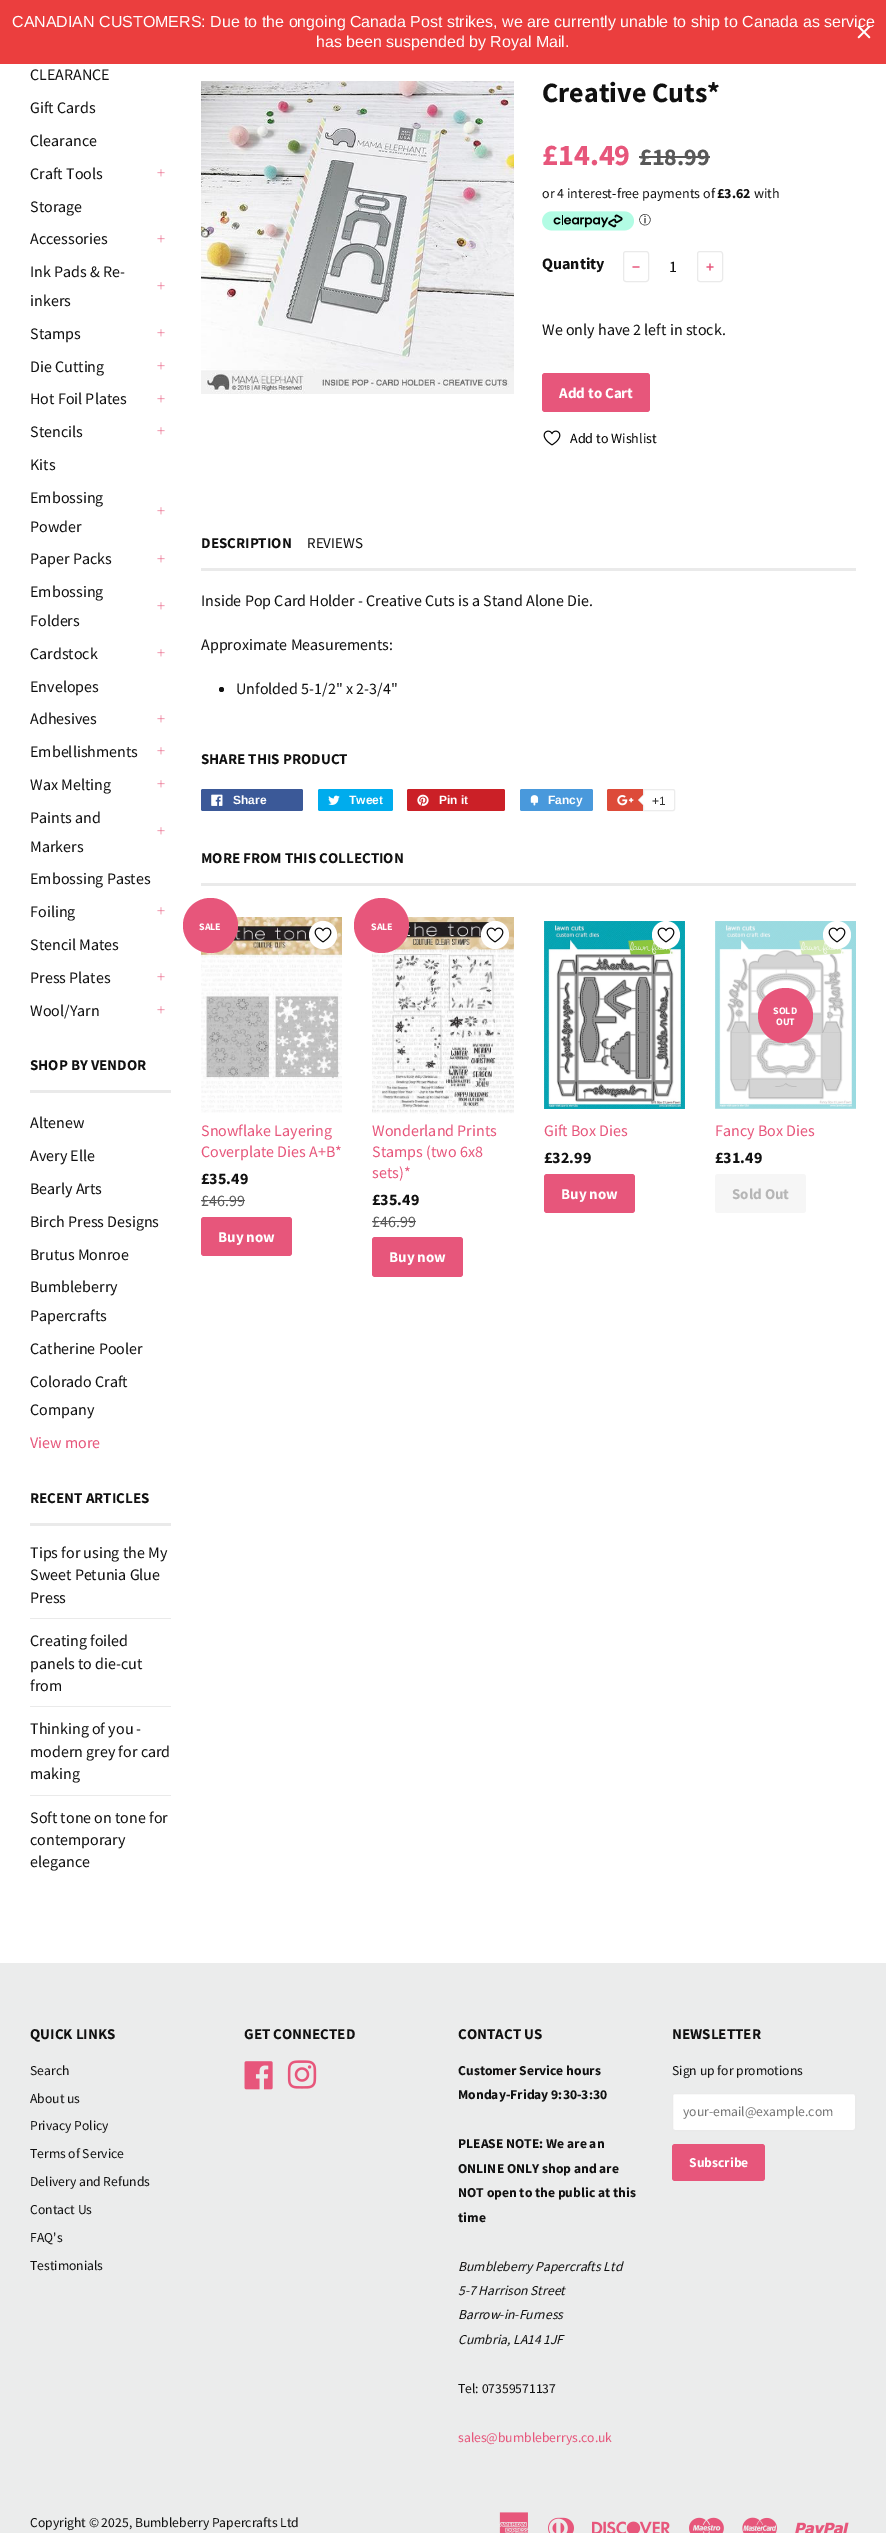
%!PS
<< /PageSize [886 2533] >> setpagedevice
/mt/moveto load def
/li/lineto load def
/ct/curveto load def
/cp/closepath load def
/fl/fill load def
/st/stroke load def
/gs/gsave load def
/gr/grestore load def
/co { dup -16 bitshift 255 div exch dup -8 bitshift 255 and 255 div exch 255 and 255 div setrgbcolor } def
/fn { [ exch dup neg 0 0 3 -1 roll 0 0 ] selectfont } def
/tx { co fn moveto show } def
/bx { co rectfill } def
/ci { newpath 0 360 arc closepath } def
/rr { 5 dict begin { /r /h /w /y /x } { exch def } forall
  x r add y moveto x w add y 2 copy h add r arct x w add y h add x 1 index r arct
  x y h add x y r arct x y 2 copy exch w add exch r arct closepath end } def
/im { 5 dict begin { /h /w /y /x /name } { exch def } forall
  gsave x y translate w h scale
  w h 8 [w 0 0 h 0 0] name (r) file false 3 colorimage grestore end } def
0 2533 translate 1 -1 scale
4 setmiterlimit
0 0 886 2533 16#FFFFFF bx
0 0 886 64 16#EB3E3E bx
(media/2.raw) 157 169 8 8 im
(media/2.raw) 157 235 8 8 im
(media/2.raw) 157 282 8 8 im
(media/2.raw) 157 329 8 8 im
(media/2.raw) 157 362 8 8 im
(media/2.raw) 157 395 8 8 im
(media/2.raw) 157 427 8 8 im
(media/2.raw) 157 507 8 8 im
(media/2.raw) 157 555 8 8 im
(media/2.raw) 157 602 8 8 im
(media/2.raw) 157 649 8 8 im
(media/2.raw) 157 715 8 8 im
(media/2.raw) 157 747 8 8 im
(media/2.raw) 157 780 8 8 im
(media/2.raw) 157 827 8 8 im
(media/2.raw) 157 907 8 8 im
(media/2.raw) 157 973 8 8 im
(media/2.raw) 157 1006 8 8 im
30 1090 141 3 16#EAEAEA bx
30 1523 141 3 16#EAEAEA bx
30 1618 141 1 16#EAEAEA bx
30 1706 141 1 16#EAEAEA bx
30 1795 141 1 16#EAEAEA bx
(media/3.raw) 201 81 313 313 im
639 156 71 2 16#585858 bx
(media/4.raw) 542 211 92 20 im
16#EAEAEA co
623.5 251.5 25 30 2.5 rr st
697.5 251.5 25 30 2.5 rr st
16#E7567B co
542 373 108 39 3 rr fl
(media/5.raw) 543 430 18 16 im
201 568 655 3 16#EAEAEA bx
16#111111 co
221.5 689.5 2.5 ci fl
16#3B5998 co
201 789 102 22 2 rr fl
(media/6.raw) 211 794 12 12 im
16#00ACED co
318 789 75 22 2 rr fl
(media/7.raw) 328 795 12 10 im
16#CB2027 co
407 789 98 22 2 rr fl
(media/8.raw) 417 794 12 12 im
16#4999DC co
520 789 73 22 2 rr fl
(media/9.raw) 530 795 9 11 im
16#DD4B39 co
607 789 66 22 2 rr fl
(media/10.raw) 617 795 17 11 im
16#FFFFFF co
643.5 789.5 mt 673 789.5 li 674 789.5 674.5 790 674.5 791 ct 674.5 809 li 674.5 810 674 810.5 673 810.5 ct 643.5 810.5 li cp gs fl gr
16#ECECEC co
st
644 794 mt 644 806 li 638 800 li cp fl
16#FFFFFF co
645 794 mt 645 806 li 639 800 li cp fl
201 883 655 3 16#EAEAEA bx
(media/11.raw) 201 917 141 196 im
16#FFFFFF co
323 935 14 ci fl
(media/5.raw) 314 927 18 16 im
16#E7567B co
210.5 925.5 27.5 ci fl
201 1200 44 1 16#585858 bx
16#E7567B co
201 1217 91 39 3 rr fl
(media/12.raw) 372 917 142 197 im
16#FFFFFF co
495 935 14 ci fl
(media/5.raw) 486 927 18 16 im
16#E7567B co
381.5 925.5 27.5 ci fl
372 1221 44 1 16#585858 bx
16#E7567B co
372 1237 91 40 3 rr fl
(media/13.raw) 544 921 141 188 im
16#FFFFFF co
666 935 14 ci fl
(media/5.raw) 657 927 18 16 im
16#E7567B co
544 1174 91 39 3 rr fl
(media/14.raw) 715 921 141 188 im
16#FFFFFF co
837 935 14 ci fl
(media/5.raw) 828 927 18 16 im
16#E7567B co
785.5 1015.5 27.5 ci fl
16#F6F6F6 co
715 1174 91 39 3 rr fl
0 1963 886 570 16#EBECEC bx
(media/15.raw) 244 2061 29 29 im
(media/16.raw) 287 2060 30 29 im
16#FFFFFF co
672.5 2093.5 183 37 2.5 rr gs fl gr
16#EAEAEA co
st
16#E7567B co
672 2144 93 37 3 rr fl
(media/17.raw) 499 2512 30 21 im
(media/18.raw) 548 2517 26 16 im
(media/19.raw) 592 2521 78 12 im
(media/20.raw) 689 2517 35 16 im
(media/21.raw) 742 2517 35 16 im
(media/22.raw) 795 2522 54 11 im
(CANADIAN CUSTOMERS: Due to the ongoing Canada Post strikes, we are currently unable to ship to Canada as service) 12 27 /LiberationSans-Regular 16 16#FFFFFF tx
(has been suspended by Royal Mail.) 316 47 /LiberationSans-Regular 16 16#FFFFFF tx
(media/1.raw) 857 25 14 14 im
(CLEARANCE) 30 80 /SourceSansPro-Regular 16 16#111111 tx
(Gift Cards) 30 113 /SourceSansPro-Regular 16 16#111111 tx
(Clearance) 30 146 /SourceSansPro-Regular 16 16#111111 tx
(Craft Tools) 30 179 /SourceSansPro-Regular 16 16#111111 tx
(Storage) 30 212 /SourceSansPro-Regular 16 16#111111 tx
(Accessories) 30 244 /SourceSansPro-Regular 16 16#111111 tx
(Ink Pads & Re-) 30 277 /SourceSansPro-Regular 16 16#111111 tx
(inkers) 30 306 /SourceSansPro-Regular 16 16#111111 tx
(Stamps) 30 339 /SourceSansPro-Regular 16 16#111111 tx
(Die Cutting) 30 372 /SourceSansPro-Regular 16 16#111111 tx
(Hot Foil Plates) 30 404 /SourceSansPro-Regular 16 16#111111 tx
(Stencils) 30 437 /SourceSansPro-Regular 16 16#111111 tx
(Kits) 30 470 /SourceSansPro-Regular 16 16#111111 tx
(Embossing) 30 503 /SourceSansPro-Regular 16 16#111111 tx
(Powder) 30 532 /SourceSansPro-Regular 16 16#111111 tx
(Paper Packs) 30 564 /SourceSansPro-Regular 16 16#111111 tx
(Embossing) 30 597 /SourceSansPro-Regular 16 16#111111 tx
(Folders) 30 626 /SourceSansPro-Regular 16 16#111111 tx
(Cardstock) 30 659 /SourceSansPro-Regular 16 16#111111 tx
(Envelopes) 30 692 /SourceSansPro-Regular 16 16#111111 tx
(Adhesives) 30 724 /SourceSansPro-Regular 16 16#111111 tx
(Embellishments) 30 757 /SourceSansPro-Regular 16 16#111111 tx
(Wax Melting) 30 790 /SourceSansPro-Regular 16 16#111111 tx
(Paints and) 30 823 /SourceSansPro-Regular 16 16#111111 tx
(Markers) 30 852 /SourceSansPro-Regular 16 16#111111 tx
(Embossing Pastes) 30 884 /SourceSansPro-Regular 16 16#111111 tx
(Foiling) 30 917 /SourceSansPro-Regular 16 16#111111 tx
(Stencil Mates) 30 950 /SourceSansPro-Regular 16 16#111111 tx
(Press Plates) 30 983 /SourceSansPro-Regular 16 16#111111 tx
(Wool/Yarn) 30 1016 /SourceSansPro-Regular 16 16#111111 tx
(SHOP BY VENDOR) 30 1070 /SourceSansPro-Bold 15 16#111111 tx
(Altenew) 30 1128 /SourceSansPro-Regular 16 16#111111 tx
(Avery Elle) 30 1161 /SourceSansPro-Regular 16 16#111111 tx
(Bearly Arts) 30 1194 /SourceSansPro-Regular 16 16#111111 tx
(Birch Press Designs) 30 1227 /SourceSansPro-Regular 16 16#111111 tx
(Brutus Monroe) 30 1260 /SourceSansPro-Regular 16 16#111111 tx
(Bumbleberry) 30 1292 /SourceSansPro-Regular 16 16#111111 tx
(Papercrafts) 30 1321 /SourceSansPro-Regular 16 16#111111 tx
(Catherine Pooler) 30 1354 /SourceSansPro-Regular 16 16#111111 tx
(Colorado Craft) 30 1387 /SourceSansPro-Regular 16 16#111111 tx
(Company) 30 1415 /SourceSansPro-Regular 16 16#111111 tx
(View more) 30 1448 /SourceSansPro-Regular 16 16#E7567B tx
(RECENT ARTICLES) 30 1503 /SourceSansPro-Bold 15 16#111111 tx
(Tips for using the My) 30 1558 /SourceSansPro-Regular 16 16#111111 tx
(Sweet Petunia Glue) 30 1580 /SourceSansPro-Regular 16 16#111111 tx
(Press) 30 1603 /SourceSansPro-Regular 16 16#111111 tx
(Creating foiled) 30 1646 /SourceSansPro-Regular 16 16#111111 tx
(panels to die-cut) 30 1669 /SourceSansPro-Regular 16 16#111111 tx
(from) 30 1691 /SourceSansPro-Regular 16 16#111111 tx
(Thinking of you -) 30 1734 /SourceSansPro-Regular 16 16#111111 tx
(modern grey for card) 30 1757 /SourceSansPro-Regular 16 16#111111 tx
(making) 30 1779 /SourceSansPro-Regular 16 16#111111 tx
(Soft tone on tone for) 30 1823 /SourceSansPro-Regular 16 16#111111 tx
(contemporary) 30 1845 /SourceSansPro-Regular 16 16#111111 tx
(elegance) 30 1867 /SourceSansPro-Regular 16 16#111111 tx
(Creative Cuts*) 542 102 /SourceSansPro-Bold 28 16#111111 tx
(£14.49) 542 165 /SourceSansPro-Bold 30 16#E7567B tx
(£18.99) 639 165 /SourceSansPro-Bold 24 16#585858 tx
(or 4 interest-free payments of) 542 198 /SourceSansPro-Regular 14 16#111111 tx
(£3.62) 717 198 /SourceSansPro-Bold 14 16#111111 tx
(with) 754 198 /SourceSansPro-Regular 14 16#111111 tx
(ⓘ) 639 224 /WenQuanYiZenHei-Medium 12 16#111111 tx
(Quantity) 542 269 /SourceSansPro-Bold 16 16#111111 tx
(−) 632 272 /SourceSansPro-Bold 15 16#E7567B tx
(1) 669 272 /SourceSansPro-Regular 16 16#111111 tx
(+) 706 272 /SourceSansPro-Bold 15 16#E7567B tx
(We only have 2 left in stock.) 542 335 /SourceSansPro-Regular 16 16#111111 tx
(Add to Cart) 559 398 /SourceSansPro-Bold 15 16#FFFFFF tx
(Add to Wishlist) 570 443 /SourceSansPro-Regular 14 16#000000 tx
(DESCRIPTION) 201 548 /SourceSansPro-Bold 15 16#111111 tx
(REVIEWS) 307 548 /SourceSansPro-Regular 15 16#111111 tx
(Inside Pop Card Holder - Creative Cuts is a Stand Alone Die.) 201 606 /SourceSansPro-Regular 16 16#111111 tx
(Approximate Measurements:) 201 650 /SourceSansPro-Regular 16 16#111111 tx
(Unfolded 5-1/2" x 2-3/4") 236 694 /SourceSansPro-Regular 16 16#111111 tx
(SHARE THIS PRODUCT) 201 764 /SourceSansPro-Bold 15 16#111111 tx
(Share) 233 804 /LiberationSans-Bold 12 16#FFFFFF tx
(Tweet) 349 804 /LiberationSans-Bold 12 16#FFFFFF tx
(Pin it) 439 804 /LiberationSans-Bold 12 16#FFFFFF tx
(Fancy) 548 804 /LiberationSans-Bold 12 16#FFFFFF tx
(+1) 652 805 /LiberationSans-Regular 12 16#333333 tx
(MORE FROM THIS COLLECTION) 201 863 /SourceSansPro-Bold 15 16#111111 tx
(SALE) 199 930 /SourceSansPro-Bold 10 16#FFFFFF tx
(Snowflake Layering) 201 1136 /SourceSansPro-Regular 16 16#E7567B tx
(Coverplate Dies A+B*) 201 1157 /SourceSansPro-Regular 16 16#E7567B tx
(£35.49) 201 1184 /SourceSansPro-Bold 16 16#111111 tx
(£46.99) 201 1206 /SourceSansPro-Regular 16 16#585858 tx
(Buy now) 218 1242 /SourceSansPro-Bold 15 16#FFFFFF tx
(SALE) 371 930 /SourceSansPro-Bold 10 16#FFFFFF tx
(Wonderland Prints) 372 1136 /SourceSansPro-Regular 16 16#E7567B tx
(Stamps \(two 6x8) 372 1157 /SourceSansPro-Regular 16 16#E7567B tx
(sets\)*) 372 1178 /SourceSansPro-Regular 16 16#E7567B tx
(£35.49) 372 1205 /SourceSansPro-Bold 16 16#111111 tx
(£46.99) 372 1227 /SourceSansPro-Regular 16 16#585858 tx
(Buy now) 389 1262 /SourceSansPro-Bold 15 16#FFFFFF tx
(Gift Box Dies) 544 1136 /SourceSansPro-Regular 16 16#E7567B tx
(£32.99) 544 1163 /SourceSansPro-Bold 16 16#111111 tx
(Buy now) 561 1199 /SourceSansPro-Bold 15 16#FFFFFF tx
(SOLD) 773 1014 /SourceSansPro-Bold 10 16#FFFFFF tx
(OUT) 776 1025 /SourceSansPro-Bold 10 16#FFFFFF tx
(Fancy Box Dies) 715 1136 /SourceSansPro-Regular 16 16#E7567B tx
(£31.49) 715 1163 /SourceSansPro-Bold 16 16#111111 tx
(Sold Out) 732 1199 /SourceSansPro-Bold 15 16#B6B6B6 tx
(QUICK LINKS) 30 2039 /SourceSansPro-Bold 15 16#111111 tx
(Search) 30 2075 /SourceSansPro-Regular 13.6 16#111111 tx
(About us) 30 2103 /SourceSansPro-Regular 13.6 16#111111 tx
(Privacy Policy) 30 2130 /SourceSansPro-Regular 13.6 16#111111 tx
(Terms of Service) 30 2158 /SourceSansPro-Regular 13.6 16#111111 tx
(Delivery and Refunds) 30 2186 /SourceSansPro-Regular 13.6 16#111111 tx
(Contact Us) 30 2214 /SourceSansPro-Regular 13.6 16#111111 tx
(FAQ's) 30 2242 /SourceSansPro-Regular 13.6 16#111111 tx
(Testimonials) 30 2270 /SourceSansPro-Regular 13.6 16#111111 tx
(GET CONNECTED) 244 2039 /SourceSansPro-Bold 15 16#111111 tx
(CONTACT US) 458 2039 /SourceSansPro-Bold 15 16#111111 tx
(Customer Service hours) 458 2075 /SourceSansPro-Bold 13.6 16#111111 tx
(Monday-Friday 9:30-3:30) 458 2099 /SourceSansPro-Bold 13.6 16#111111 tx
(PLEASE NOTE: We are an) 458 2148 /SourceSansPro-Bold 13.6 16#111111 tx
(ONLINE ONLY shop and are) 458 2173 /SourceSansPro-Bold 13.6 16#111111 tx
(NOT open to the public at this) 458 2197 /SourceSansPro-Bold 13.6 16#111111 tx
(time) 458 2222 /SourceSansPro-Bold 13.6 16#111111 tx
(Bumbleberry Papercrafts Ltd) 458 2271 /SourceSansPro-Italic 13.6 16#111111 tx
(5-7 Harrison Street) 458 2295 /SourceSansPro-Italic 13.6 16#111111 tx
(Barrow-in-Furness) 458 2319 /SourceSansPro-Italic 13.6 16#111111 tx
(Cumbria, LA14 1JF) 458 2344 /SourceSansPro-Italic 13.6 16#111111 tx
(Tel: 07359571137) 458 2393 /SourceSansPro-Regular 13.6 16#111111 tx
(sales@bumbleberrys.co.uk) 458 2442 /SourceSansPro-Regular 13.6 16#E7567B tx
(NEWSLETTER) 672 2039 /SourceSansPro-Bold 15 16#111111 tx
(Sign up for promotions) 672 2075 /SourceSansPro-Regular 13.6 16#111111 tx
(your-email@example.com) 683 2116 /SourceSansPro-Regular 13.6 16#757575 tx
(Subscribe) 689 2167 /SourceSansPro-Bold 13.6 16#FFFFFF tx
(Copyright © 2025, Bumbleberry Papercrafts Ltd) 30 2527 /SourceSansPro-Regular 13.6 16#111111 tx
showpage
